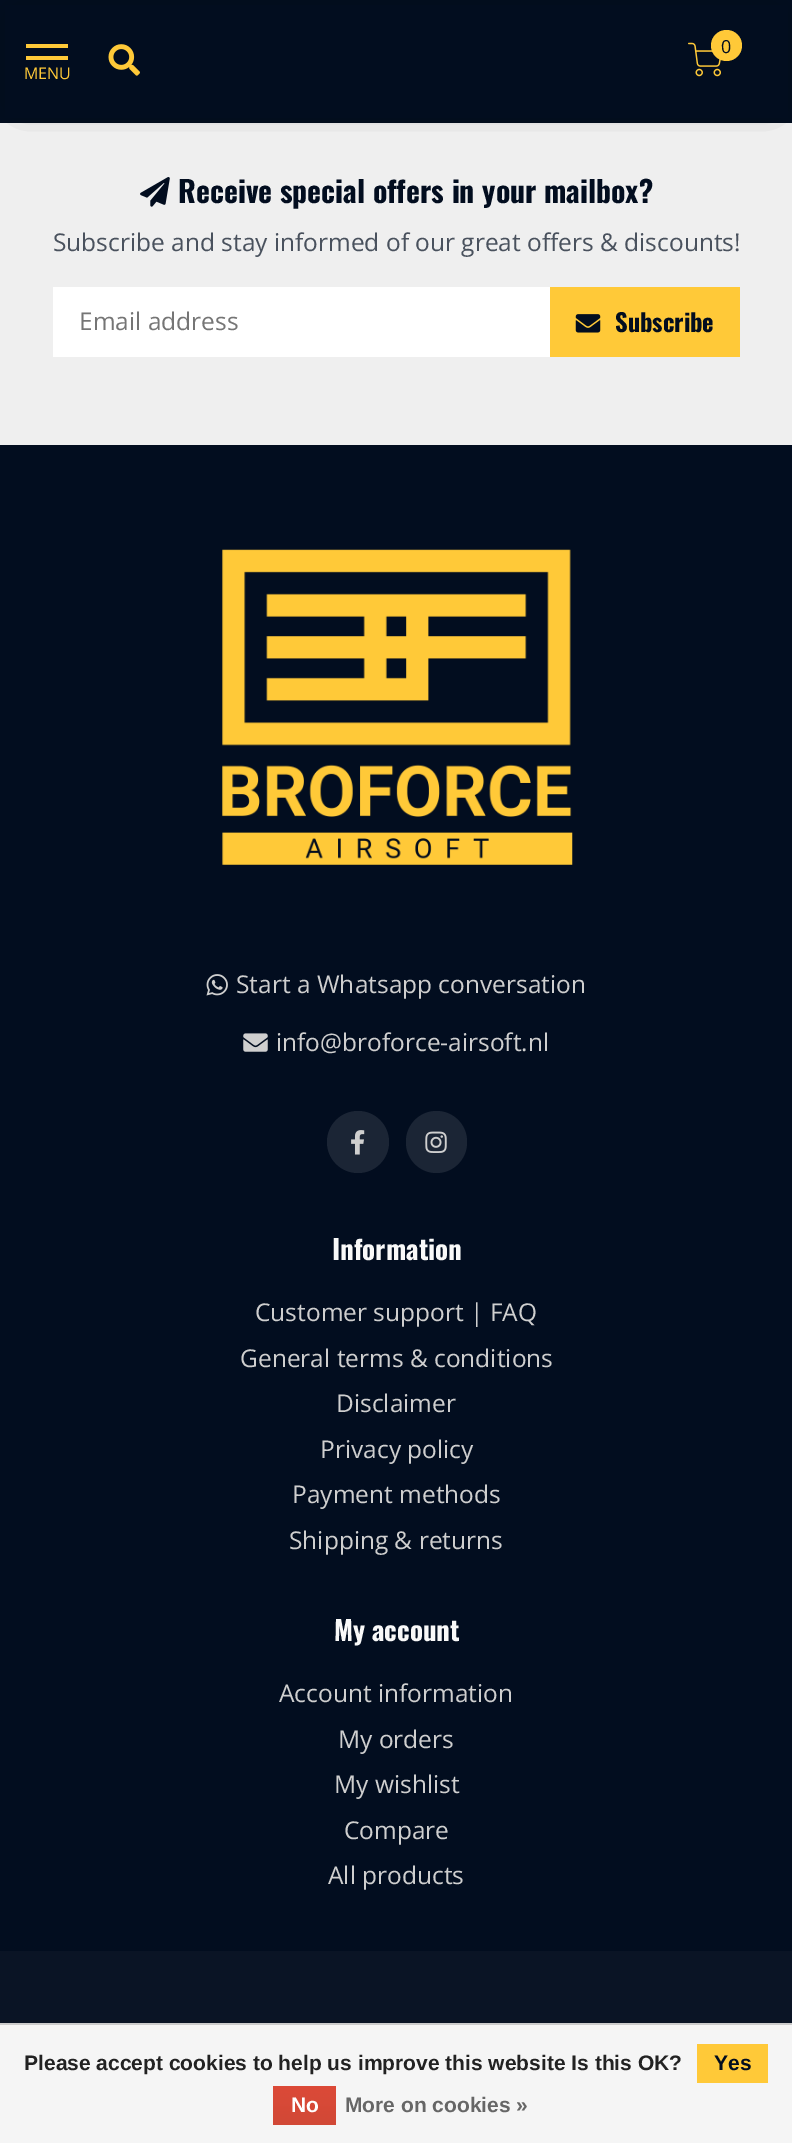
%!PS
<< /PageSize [792 2143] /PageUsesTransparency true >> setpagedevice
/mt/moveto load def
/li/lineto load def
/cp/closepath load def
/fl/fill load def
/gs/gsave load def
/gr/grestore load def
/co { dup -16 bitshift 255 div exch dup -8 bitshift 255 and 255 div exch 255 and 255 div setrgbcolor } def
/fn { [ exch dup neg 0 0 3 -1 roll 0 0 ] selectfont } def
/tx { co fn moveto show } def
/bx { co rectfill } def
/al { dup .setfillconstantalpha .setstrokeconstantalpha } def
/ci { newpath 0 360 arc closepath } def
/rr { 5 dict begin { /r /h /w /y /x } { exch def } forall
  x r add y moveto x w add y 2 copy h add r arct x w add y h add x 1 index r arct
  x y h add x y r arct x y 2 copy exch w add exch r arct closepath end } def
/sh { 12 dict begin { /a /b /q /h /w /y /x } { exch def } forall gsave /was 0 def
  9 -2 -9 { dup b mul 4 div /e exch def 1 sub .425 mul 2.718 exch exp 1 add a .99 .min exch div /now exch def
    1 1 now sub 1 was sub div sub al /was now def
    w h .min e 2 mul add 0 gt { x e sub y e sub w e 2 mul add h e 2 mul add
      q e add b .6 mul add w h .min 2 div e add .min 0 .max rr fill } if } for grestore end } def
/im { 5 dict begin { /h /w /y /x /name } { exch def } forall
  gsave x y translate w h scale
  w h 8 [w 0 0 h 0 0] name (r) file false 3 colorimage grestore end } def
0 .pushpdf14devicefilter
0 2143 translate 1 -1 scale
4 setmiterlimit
0 0 792 2143 16#020D1F bx
0 123 792 322 16#EFEFEF bx
16#000000 co
23 23 747 77 0 14 .8 sh
5 5 783 113 16#020D1F bx
(media/1.raw) 688 42 33 35 im
16#FFC938 co
726.5 45.5 15.5 ci fl
26 44 42 4 16#FFC938 bx
26 56 42 4 16#FFC938 bx
(media/2.raw) 108 44 32 32 im
(media/3.raw) 140 177 30 30 im
53 287 497 70 16#FFFFFF bx
550 287 190 70 16#FFC938 bx
(media/4.raw) 575 314 26 19 im
(media/5.raw) 222 549 351 316 im
(media/6.raw) 206 974 22 22 im
(media/7.raw) 243 1033 25 19 im
16#1B2535 co
358 1142 31 ci fl
(media/8.raw) 351 1130 14 25 im
406 1111 61 62 30.5 rr fl
(media/9.raw) 425 1131 22 22 im
0 1951 792 72 16#0A1425 bx
0 2025 792 118 16#F5F5F5 bx
0 2023 792 2 16#CCCCCC bx
697 2044 71 39 16#FFC938 bx
gs 273 2086 mt 336 2086 li 336 2125 li 273 2125 li cp clip newpath
<< /ShadingType 2 /ColorSpace /DeviceRGB /Coords [305 2086 305 2125] /Extend [true true] /Function << /FunctionType 2 /Domain [0 1] /C0 [.863 .29 .22] /C1 [.82 .282 .212] /N 1 >> >> shfill gr
(0) 721 53 /OpenSans-Regular 18 16#020D1F tx
(MENU) 24 79 /OpenSans-Regular 16 16#FFC938 tx
(Receive special offers in your mailbox?) 178 203 /Oswald-Bold 29.75 16#020D1F tx
(Subscribe and stay informed of our great offers & discounts!) 53 251 /OpenSans-Regular 24.5 16#49515D tx
(Email address) 79 330 /OpenSans-Regular 24.5 16#757575 tx
(Subscribe) 615 332 /Oswald-Bold 24.5 16#020D1F tx
(Start a Whatsapp conversation) 236 993 /OpenSans-Regular 24.5 16#CFCFCF tx
(info@broforce-airsoft.nl) 276 1051 /OpenSans-Regular 24.5 16#CFCFCF tx
(Information) 332 1260 /Oswald-Bold 27 16#F9F9F9 tx
(Customer support | FAQ) 255 1321 /OpenSans-Regular 24.5 16#CFCFCF tx
(General terms & conditions) 240 1367 /OpenSans-Regular 24.5 16#CFCFCF tx
(Disclaimer) 336 1412 /OpenSans-Regular 24.5 16#CFCFCF tx
(Privacy policy) 320 1458 /OpenSans-Regular 24.5 16#CFCFCF tx
(Payment methods) 292 1503 /OpenSans-Regular 24.5 16#CFCFCF tx
(Shipping & returns) 289 1549 /OpenSans-Regular 24.5 16#CFCFCF tx
(My account) 334 1641 /Oswald-Bold 27 16#F9F9F9 tx
(Account information) 279 1702 /OpenSans-Regular 24.5 16#CFCFCF tx
(My orders) 338 1748 /OpenSans-Regular 24.5 16#CFCFCF tx
(My wishlist) 334 1793 /OpenSans-Regular 24.5 16#CFCFCF tx
(Compare) 344 1839 /OpenSans-Regular 24.5 16#CFCFCF tx
(All products) 328 1884 /OpenSans-Regular 24.5 16#CFCFCF tx
(Please accept cookies to help us improve this website Is this OK?) 24 2070 /LiberationSans-Bold 21 16#222222 tx
(Yes) 714 2070 /LiberationSans-Bold 21 16#020D1F tx
(No) 291 2112 /LiberationSans-Bold 21 16#FFFFFF tx
(More on cookies ») 345 2112 /LiberationSans-Bold 21 16#666666 tx
.poppdf14devicefilter showpage
